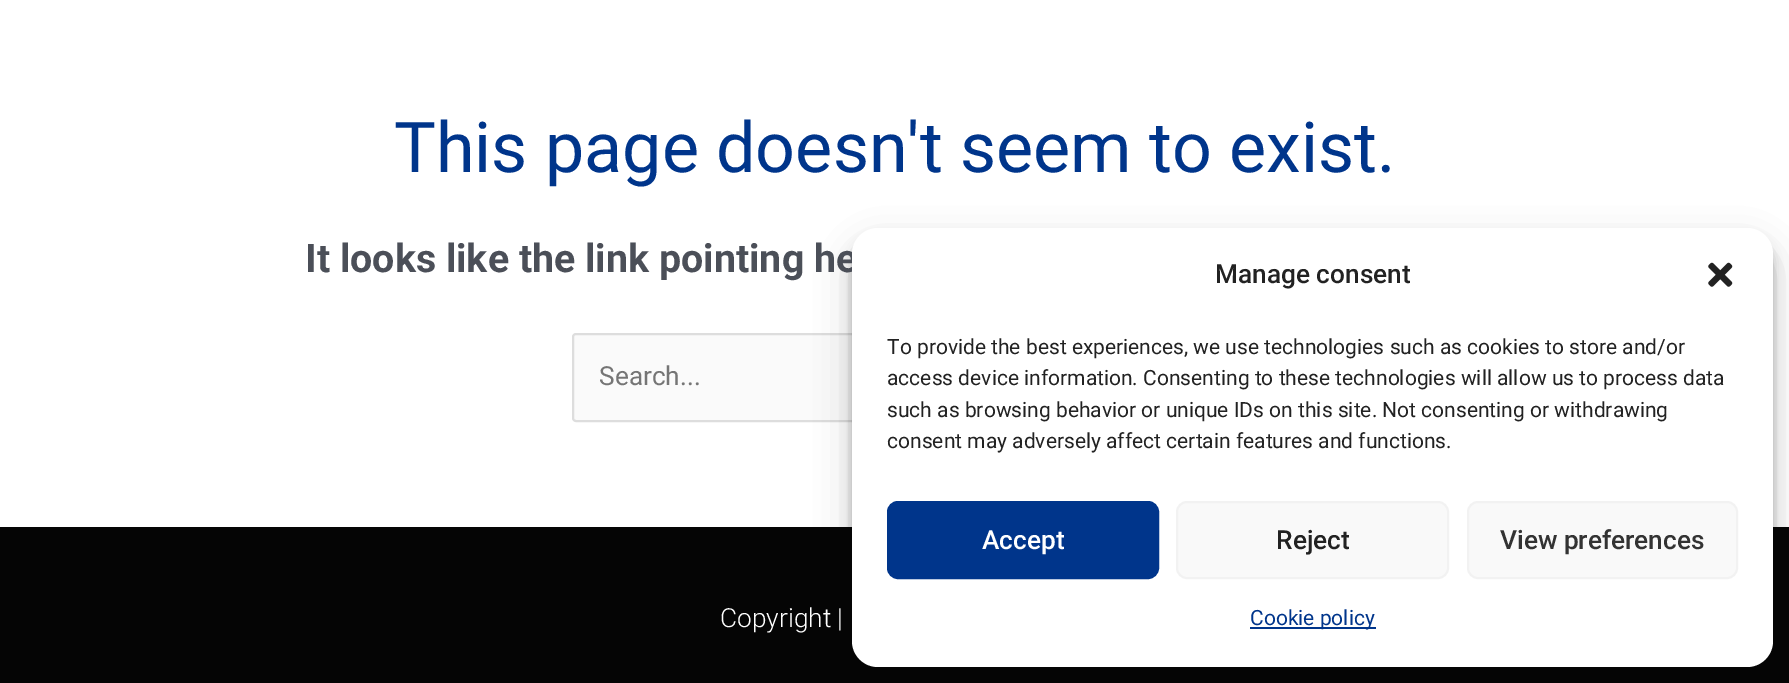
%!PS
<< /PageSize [1789 683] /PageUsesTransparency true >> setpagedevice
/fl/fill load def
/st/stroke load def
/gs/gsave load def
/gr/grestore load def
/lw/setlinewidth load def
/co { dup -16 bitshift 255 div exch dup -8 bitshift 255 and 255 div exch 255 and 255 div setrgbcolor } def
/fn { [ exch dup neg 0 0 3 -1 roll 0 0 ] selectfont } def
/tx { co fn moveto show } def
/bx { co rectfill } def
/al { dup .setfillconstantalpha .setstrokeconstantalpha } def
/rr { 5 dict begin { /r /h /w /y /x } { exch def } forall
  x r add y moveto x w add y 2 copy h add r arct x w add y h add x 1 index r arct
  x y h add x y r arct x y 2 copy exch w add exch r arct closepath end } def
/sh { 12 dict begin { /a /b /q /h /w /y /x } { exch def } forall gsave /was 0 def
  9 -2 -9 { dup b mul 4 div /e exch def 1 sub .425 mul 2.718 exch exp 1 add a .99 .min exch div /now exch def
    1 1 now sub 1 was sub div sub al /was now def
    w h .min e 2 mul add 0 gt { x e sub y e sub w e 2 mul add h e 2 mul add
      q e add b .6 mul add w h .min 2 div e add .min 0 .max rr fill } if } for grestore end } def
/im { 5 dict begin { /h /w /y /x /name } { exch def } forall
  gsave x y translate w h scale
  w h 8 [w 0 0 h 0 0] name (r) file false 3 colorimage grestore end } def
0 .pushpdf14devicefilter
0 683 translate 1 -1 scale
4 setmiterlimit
0 0 1789 683 16#FFFFFF bx
16#FAFAFA co
573 334 646 87 3 rr gs fl gr
16#DDDDDD co
2 lw
st
0 527 1789 156 16#050505 bx
16#000000 co
852 238 921 439 26 5 .23 sh
852 245 921 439 26 17.5 .19 sh
(This page doesn't seem to exist.) 394 172 /Roboto-Regular 70 16#00358B tx
(It looks like the link pointing he) 305 272 /Roboto-Bold 39.4 16#4B4F58 tx
(Search...) 599 385 /Roboto-Regular 26.25 16#757575 tx
(Copyright |) 720 627 /Roboto-Light 26.25 16#FFFFFF tx
852 228 921 439 26 rr fl
(Manage consent) 1215 283 /Roboto-Medium 26.25 16#222222 tx
(media/1.raw) 1708 262 25 25 im
(To provide the best experiences, we use technologies such as cookies to store and/or) 887 354 /Roboto-Regular 21 16#222222 tx
(access device information. Consenting to these technologies will allow us to process data) 887 385 /Roboto-Regular 21 16#222222 tx
(such as browsing behavior or unique IDs on this site. Not consenting or withdrawing) 887 417 /Roboto-Regular 21 16#222222 tx
(consent may adversely affect certain features and functions.) 887 448 /Roboto-Regular 21 16#222222 tx
16#00358B co
888 502 270 76 10 rr gs fl gr
st
(Accept) 982 549 /Roboto-Medium 26.25 16#FFFFFF tx
16#F9F9F9 co
1177 502 271 76 10 rr gs fl gr
16#F2F2F2 co
st
(Reject) 1276 549 /Roboto-Medium 26.25 16#222222 tx
16#F9F9F9 co
1468 502 269 76 10 rr gs fl gr
16#F2F2F2 co
st
(View preferences) 1500 549 /Roboto-Medium 26.25 16#333333 tx
1250 627 126 2 16#00358B bx
(Cookie policy) 1250 625 /Roboto-Regular 21 16#00358B tx
.poppdf14devicefilter showpage
